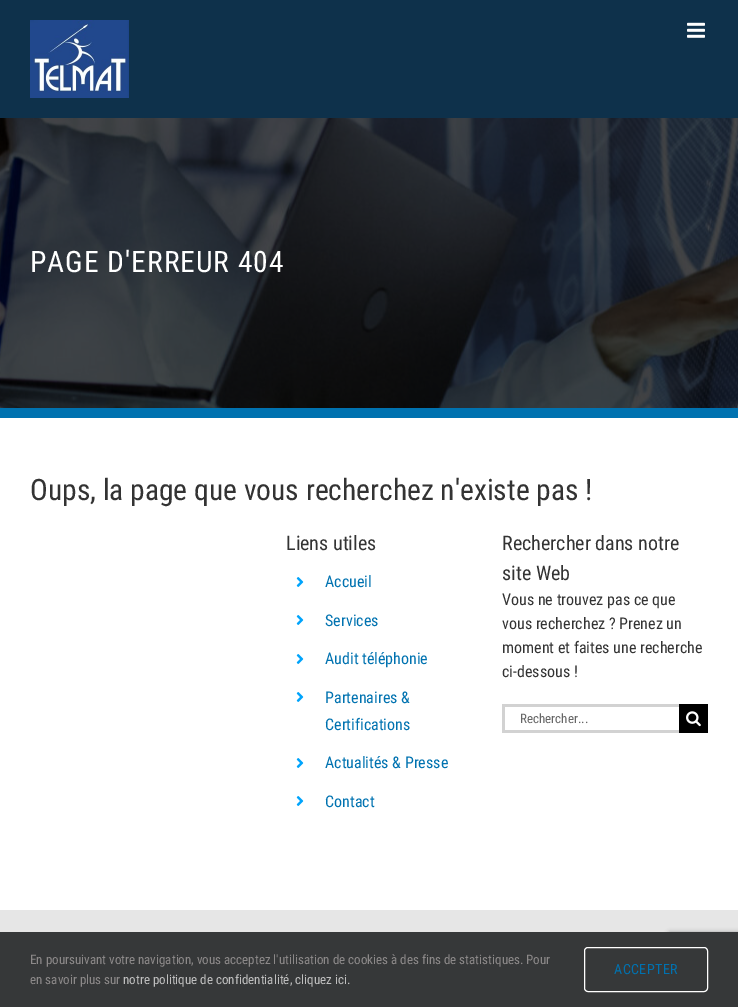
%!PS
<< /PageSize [738 1007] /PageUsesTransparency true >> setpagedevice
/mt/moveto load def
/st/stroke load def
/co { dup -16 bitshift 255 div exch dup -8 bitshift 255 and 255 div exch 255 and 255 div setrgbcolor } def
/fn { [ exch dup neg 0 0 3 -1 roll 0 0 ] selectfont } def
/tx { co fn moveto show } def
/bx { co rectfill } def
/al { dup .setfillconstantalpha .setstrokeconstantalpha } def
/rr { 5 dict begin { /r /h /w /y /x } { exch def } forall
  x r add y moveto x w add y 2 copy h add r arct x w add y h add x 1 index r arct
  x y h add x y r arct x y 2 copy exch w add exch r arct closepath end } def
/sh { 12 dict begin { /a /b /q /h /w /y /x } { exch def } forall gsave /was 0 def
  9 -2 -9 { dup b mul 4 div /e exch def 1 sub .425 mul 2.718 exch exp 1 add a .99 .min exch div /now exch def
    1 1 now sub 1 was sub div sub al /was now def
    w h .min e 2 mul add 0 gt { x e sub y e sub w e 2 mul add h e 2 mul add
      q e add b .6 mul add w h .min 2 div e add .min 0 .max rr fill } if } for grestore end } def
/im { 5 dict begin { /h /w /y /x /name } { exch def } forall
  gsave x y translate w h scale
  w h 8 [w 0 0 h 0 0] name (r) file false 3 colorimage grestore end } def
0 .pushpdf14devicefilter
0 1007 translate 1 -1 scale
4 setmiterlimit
0 0 738 1007 16#FFFFFF bx
0 0 738 118 16#0E314B bx
(media/1.raw) 30 20 99 78 im
(media/2.raw) 687 22 18 16 im
(media/3.raw) 0 118 738 290 im
0 408 738 10 16#0072B0 bx
(media/4.raw) 296 577 8 10 im
(media/4.raw) 296 615 8 10 im
(media/4.raw) 296 654 8 10 im
(media/4.raw) 296 692 8 10 im
(media/4.raw) 296 758 8 10 im
(media/4.raw) 296 796 8 10 im
502 704 177 3 16#D2D2D2 bx
502 730 177 3 16#D2D2D2 bx
502 704 3 29 16#D2D2D2 bx
679 704 29 29 16#000000 bx
(media/5.raw) 686 711 15 16 im
0 910 738 22 16#E6E6E6 bx
16#808080 co
668 933 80 60 2 2.5 1 sh
0 932 738 75 16#363839 bx
16#FFFFFF co
584.5 947.5 123 44 3.5 rr st
/RobotoCondensed-Regular 29.5 fn
30 272 mt 1 0 (PAGE D'ERREUR 404) ashow
(Oups, la page que vous recherchez n'existe pas !) 30 500 /RobotoCondensed-Regular 29.5 16#333333 tx
(Liens utiles) 286 550 /RobotoCondensed-Regular 20 16#333333 tx
(Accueil) 325 587 /RobotoCondensed-Regular 16 16#0072B0 tx
(Services) 325 626 /RobotoCondensed-Regular 16 16#0072B0 tx
(Audit téléphonie) 325 664 /RobotoCondensed-Regular 16 16#0072B0 tx
(Partenaires &) 325 703 /RobotoCondensed-Regular 16 16#0072B0 tx
(Certifications) 325 730 /RobotoCondensed-Regular 16 16#0072B0 tx
(Actualités & Presse) 325 768 /RobotoCondensed-Regular 16 16#0072B0 tx
(Contact) 325 807 /RobotoCondensed-Regular 16 16#0072B0 tx
(Rechercher dans notre) 502 550 /RobotoCondensed-Regular 20 16#333333 tx
(site Web) 502 580 /RobotoCondensed-Regular 20 16#333333 tx
(Vous ne trouvez pas ce que) 502 605 /RobotoCondensed-Regular 16 16#333333 tx
(vous recherchez ? Prenez un) 502 629 /RobotoCondensed-Regular 16 16#333333 tx
(moment et faites une recherche) 502 653 /RobotoCondensed-Regular 16 16#333333 tx
(ci-dessous !) 502 677 /RobotoCondensed-Regular 16 16#333333 tx
(Rechercher...) 520 723 /RobotoCondensed-Regular 13 16#666666 tx
(En poursuivant votre navigation, vous acceptez l'utilisation de cookies à des fins de statistiques. Pour) 30 964 /RobotoCondensed-Regular 13 16#8C8989 tx
(en savoir plus sur) 30 984 /RobotoCondensed-Regular 13 16#8C8989 tx
(notre politique de confidentialité, cliquez ici.) 123 984 /RobotoCondensed-Regular 13 16#BFBFBF tx
/RobotoCondensed-Regular 14 fn
16#0072B0 co
614 974 mt .5 0 (ACCEPTER) ashow
.poppdf14devicefilter showpage
